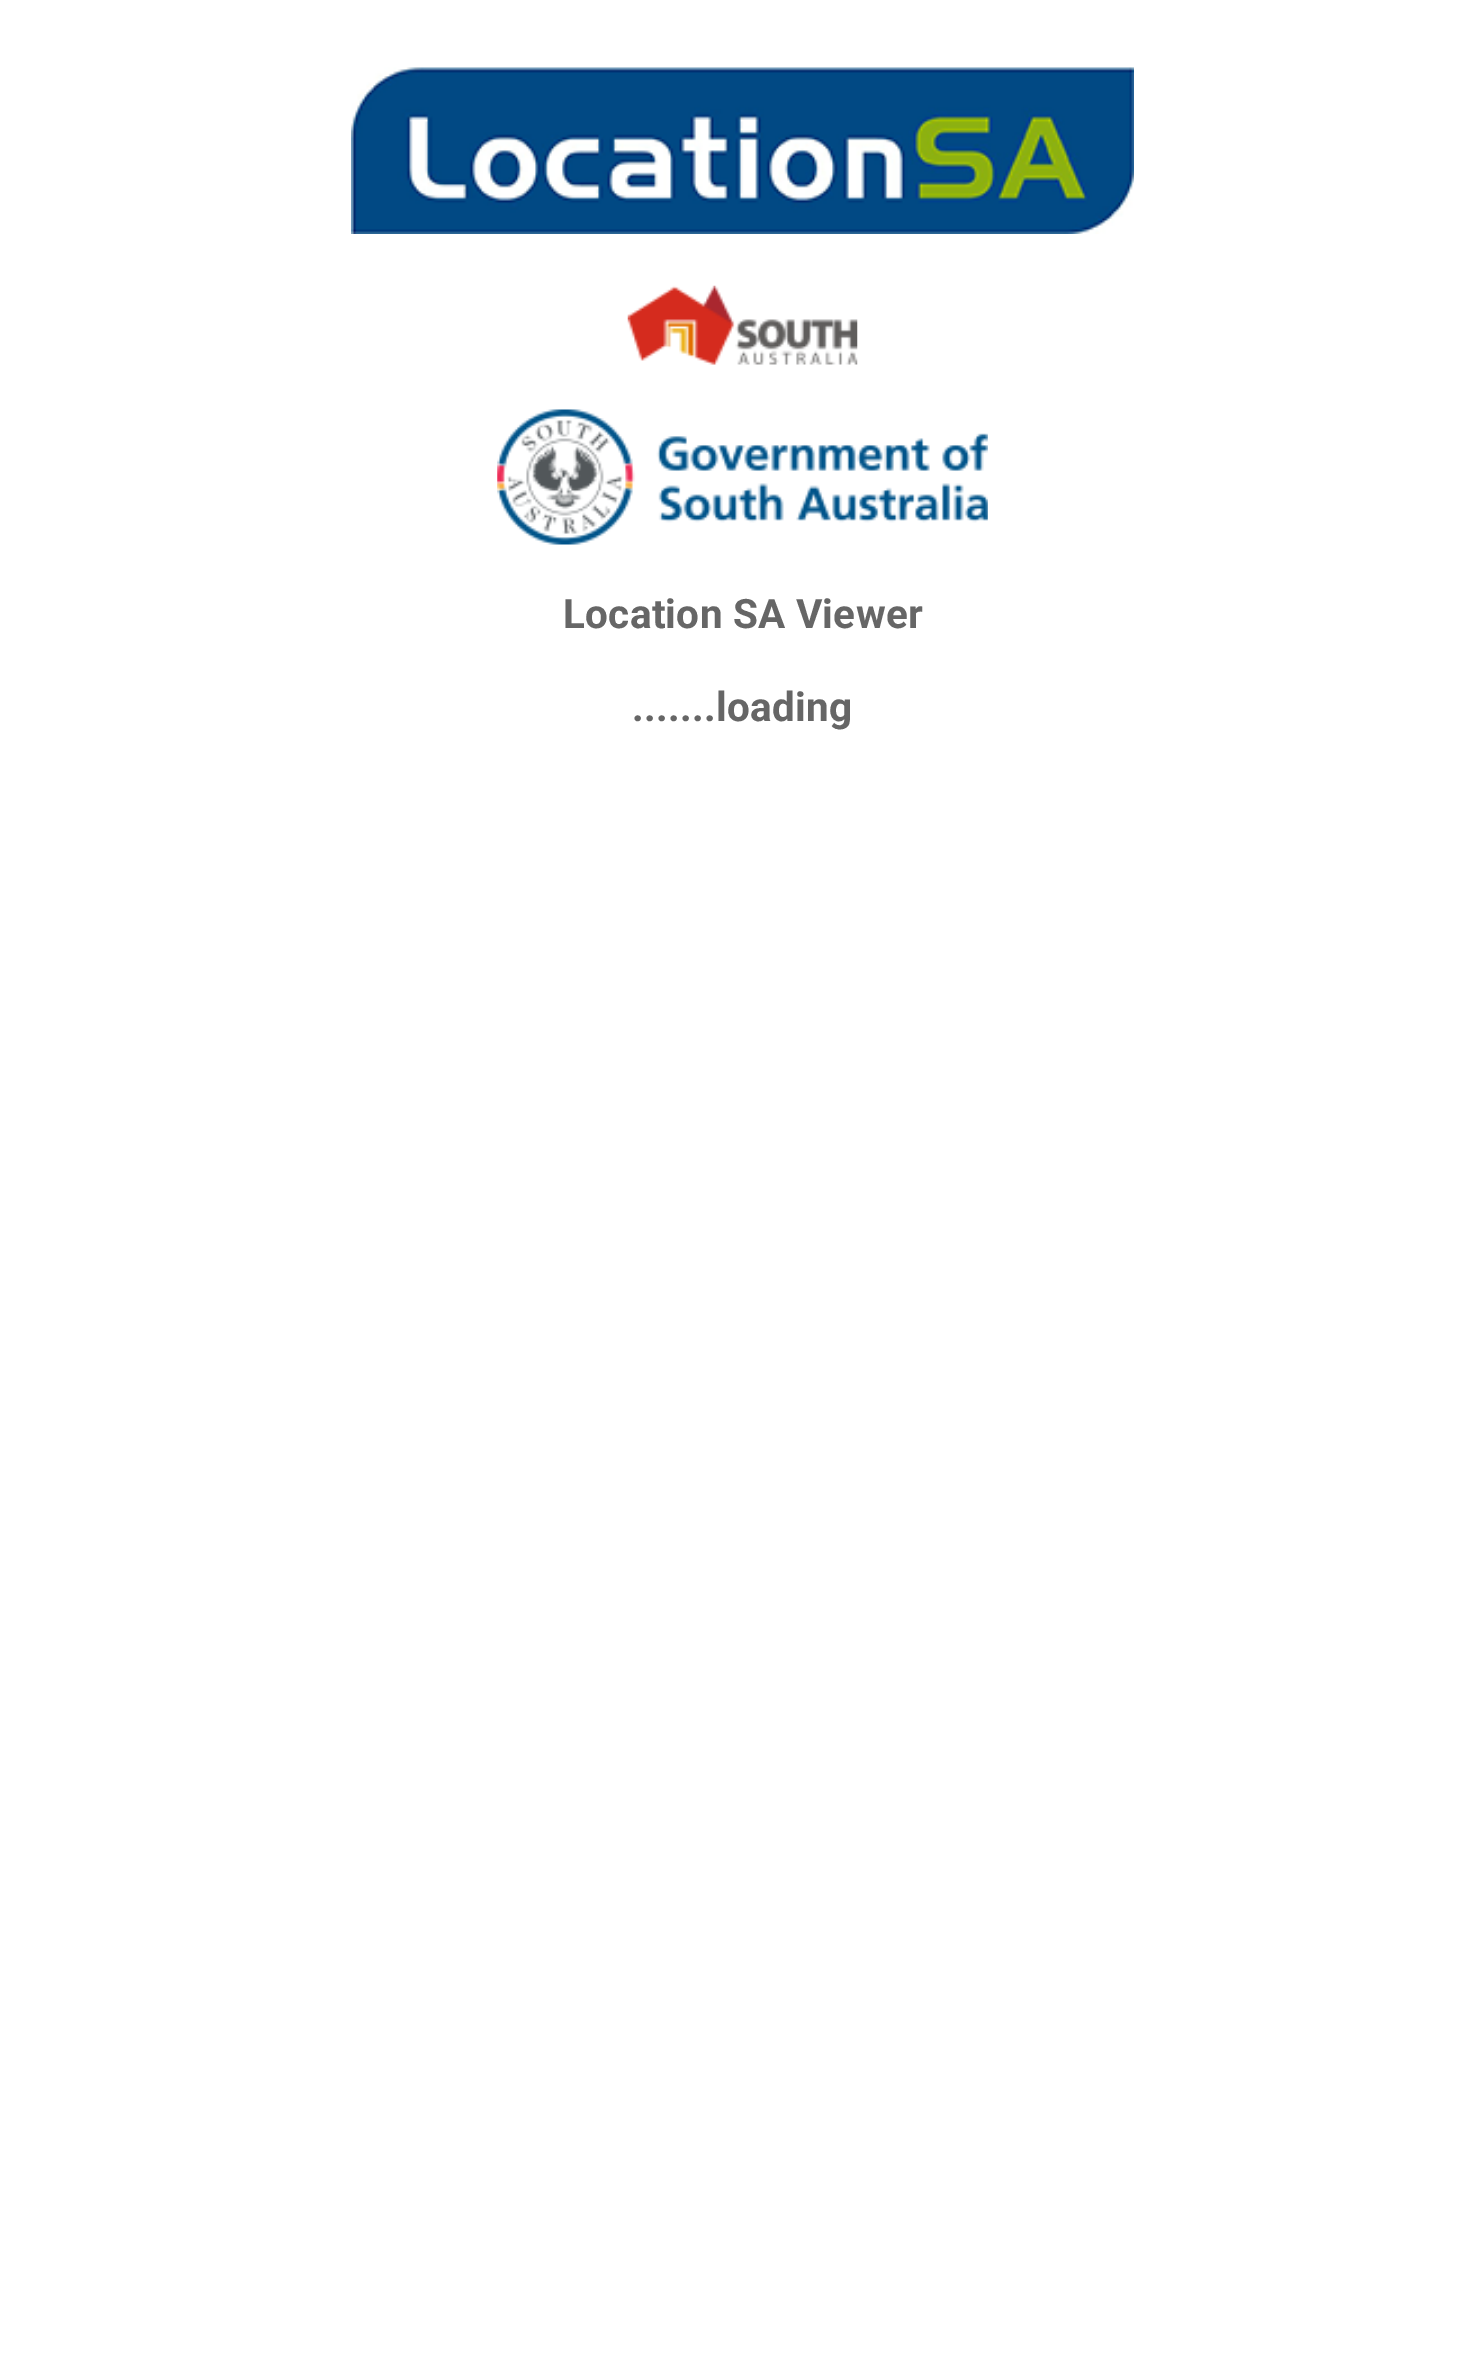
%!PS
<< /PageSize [1483 2358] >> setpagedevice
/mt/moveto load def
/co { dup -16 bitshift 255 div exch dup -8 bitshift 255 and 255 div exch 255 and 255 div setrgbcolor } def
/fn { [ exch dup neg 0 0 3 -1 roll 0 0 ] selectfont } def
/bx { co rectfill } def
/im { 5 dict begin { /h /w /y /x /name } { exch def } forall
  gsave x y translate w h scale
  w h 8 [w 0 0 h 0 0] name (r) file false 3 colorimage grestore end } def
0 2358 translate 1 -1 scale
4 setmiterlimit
0 0 1483 2358 16#FFFFFF bx
(media/1.raw) 351 67 783 167 im
(media/2.raw) 627 285 231 80 im
(media/3.raw) 497 409 491 136 im
/Roboto-Bold 40.5 fn
16#666666 co
563 628 mt .25 0 (Location SA Viewer) ashow
632 721 mt .25 0 (.......loading) ashow
showpage
